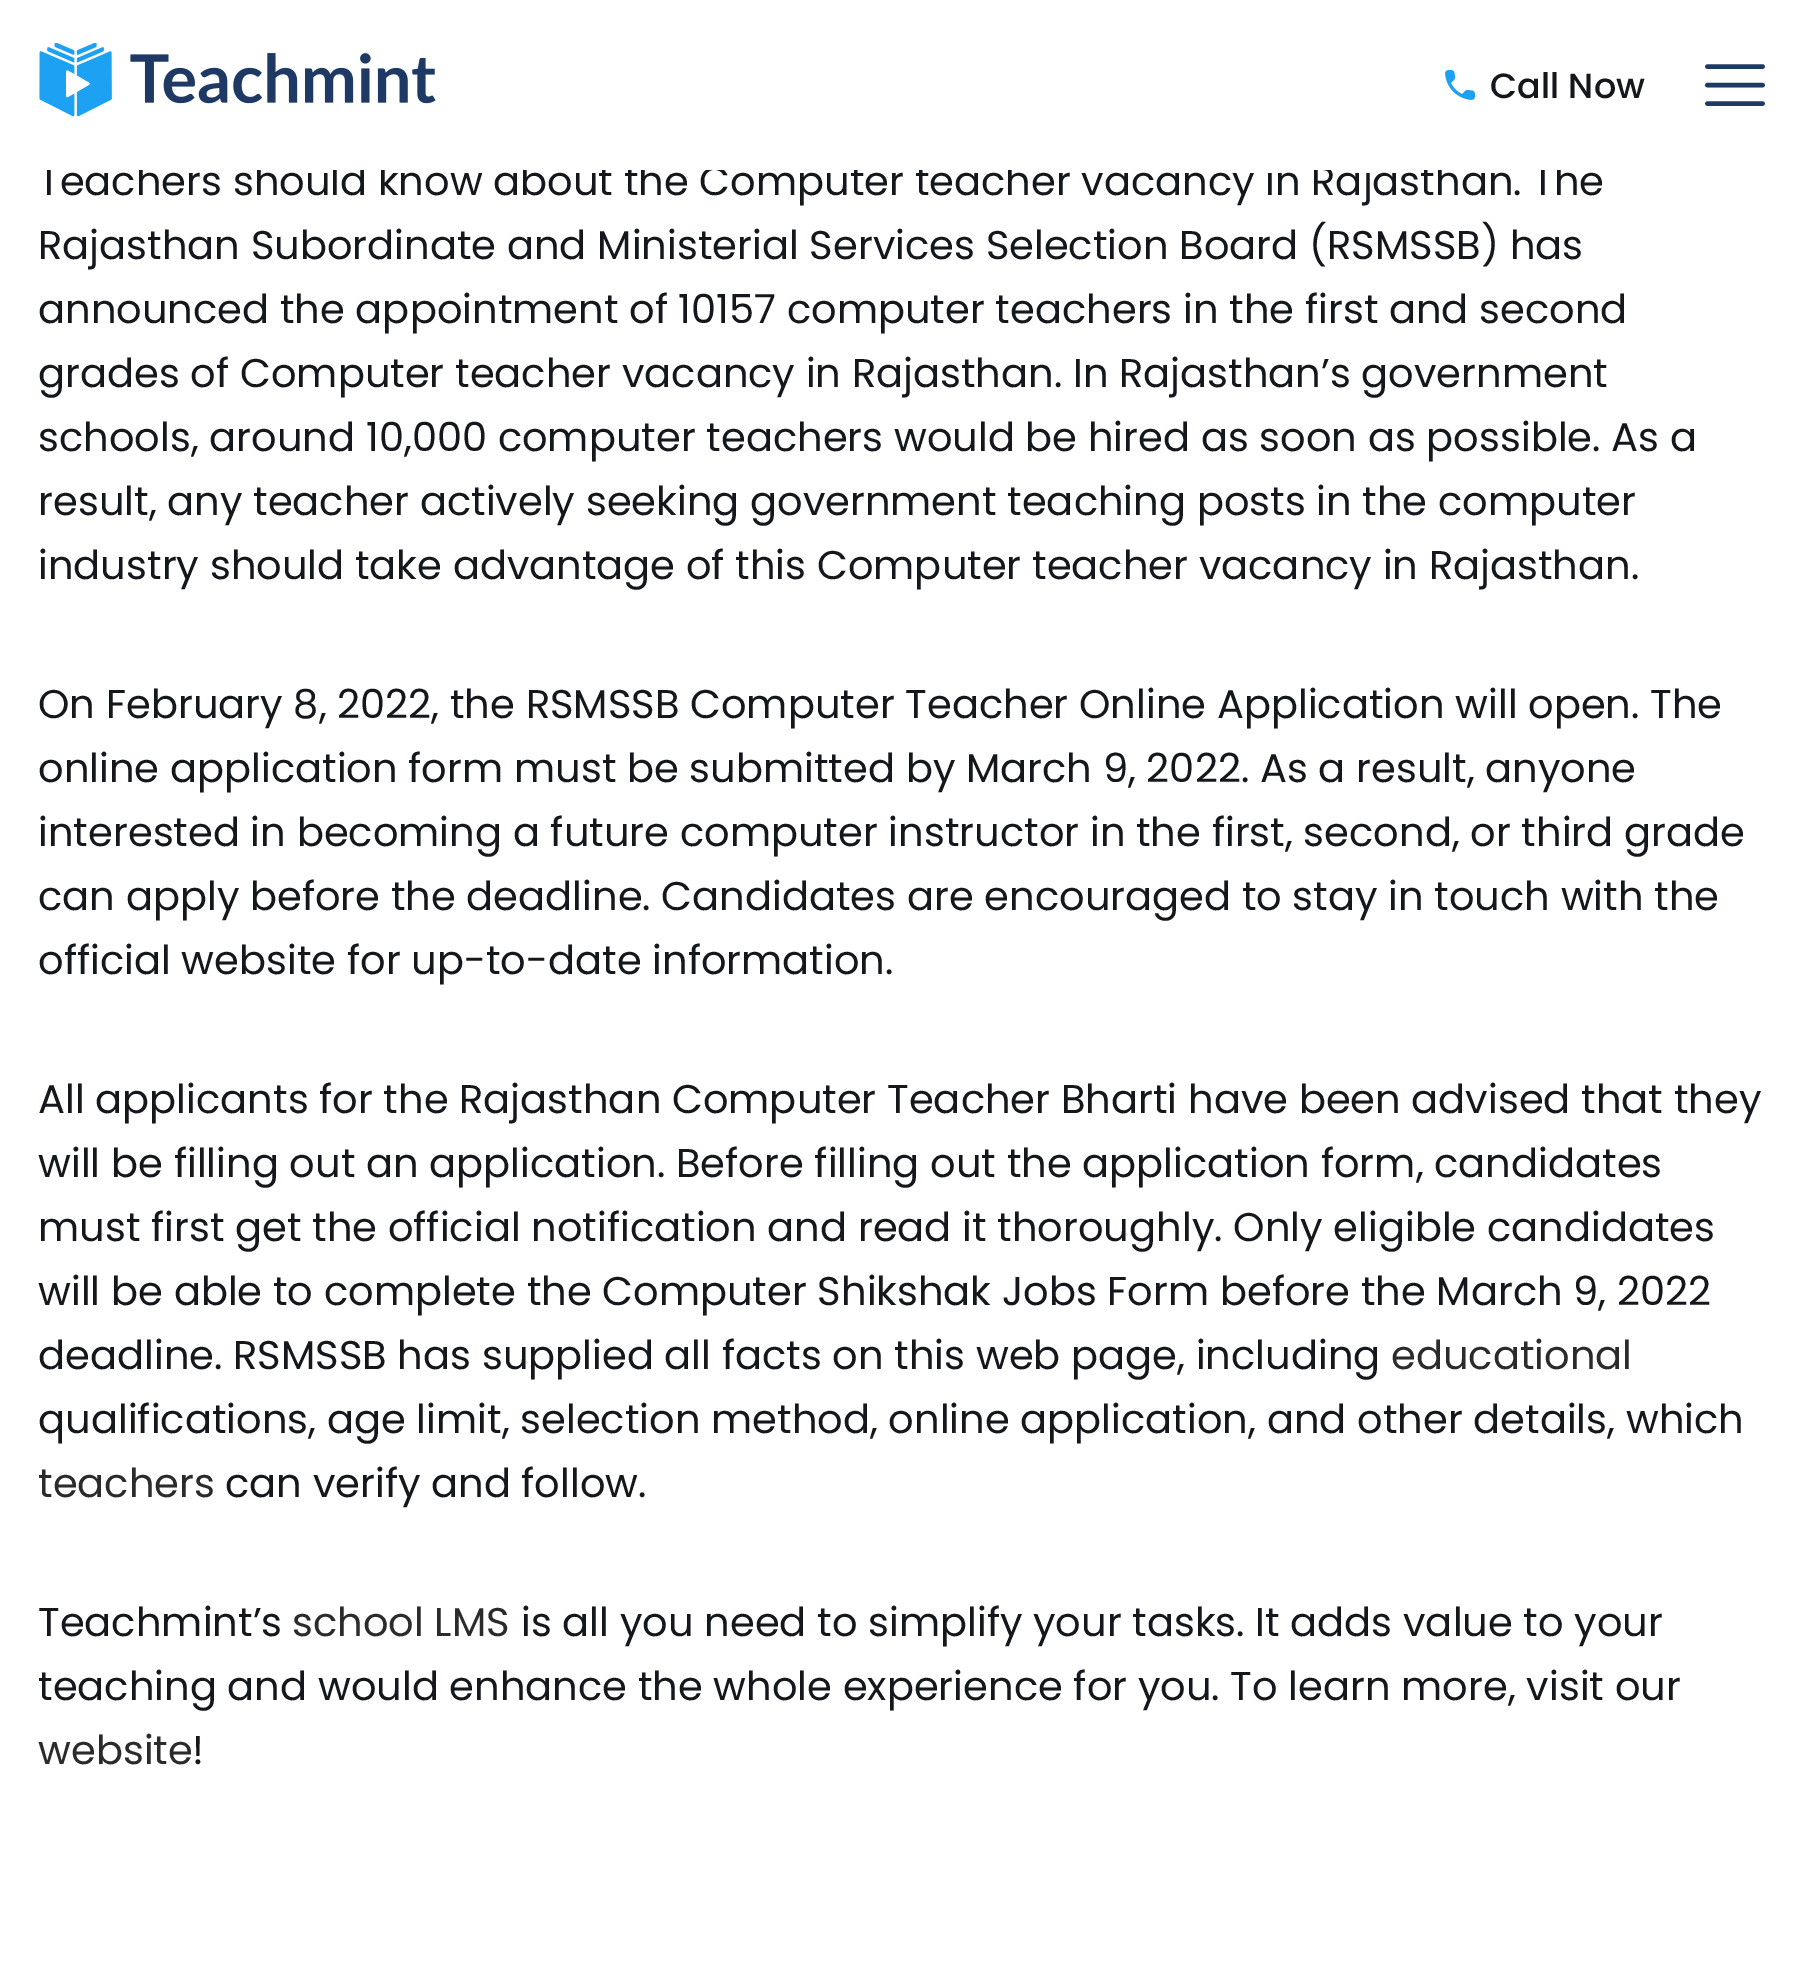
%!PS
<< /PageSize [1802 1981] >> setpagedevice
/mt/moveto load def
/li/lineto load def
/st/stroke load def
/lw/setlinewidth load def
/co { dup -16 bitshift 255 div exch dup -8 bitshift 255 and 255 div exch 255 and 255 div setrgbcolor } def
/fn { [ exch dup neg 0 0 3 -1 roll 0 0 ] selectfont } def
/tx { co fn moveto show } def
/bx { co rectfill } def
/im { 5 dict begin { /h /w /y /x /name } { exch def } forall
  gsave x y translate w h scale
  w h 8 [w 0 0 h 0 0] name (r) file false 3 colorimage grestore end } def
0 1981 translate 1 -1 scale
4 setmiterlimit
0 0 1802 1981 16#FFFFFF bx
(media/1.raw) 39 43 397 74 im
(media/2.raw) 1445 70 30 30 im
16#1F3965 co
4.6 lw
1 setlinecap
1 setlinejoin
1707.5 85 mt 1762.5 85 li 1707.5 66.5 mt 1762.5 66.5 li 1707.5 103.5 mt 1762.5 103.5 li st
(Call Now) 1490 98 /Poppins-Medium 35 16#14171C tx
(Teachers should know about the Computer teacher vacancy in Rajasthan. The) 38 195 /Poppins-Regular 40 16#14171C tx
38 164 1523 6 16#FFFFFF bx
(Rajasthan Subordinate and Ministerial Services Selection Board \(RSMSSB\) has) 38 259 /Poppins-Regular 40 16#14171C tx
(announced the appointment of 10157 computer teachers in the first and second) 38 323 /Poppins-Regular 40 16#14171C tx
(grades of Computer teacher vacancy in Rajasthan. In Rajasthan’s government) 38 387 /Poppins-Regular 40 16#14171C tx
(schools, around 10,000 computer teachers would be hired as soon as possible. As a) 38 451 /Poppins-Regular 40 16#14171C tx
(result, any teacher actively seeking government teaching posts in the computer) 38 515 /Poppins-Regular 40 16#14171C tx
(industry should take advantage of this Computer teacher vacancy in Rajasthan.) 38 579 /Poppins-Regular 40 16#14171C tx
(On February 8, 2022, the RSMSSB Computer Teacher Online Application will open. The) 38 718 /Poppins-Regular 40 16#14171C tx
(online application form must be submitted by March 9, 2022. As a result, anyone) 38 782 /Poppins-Regular 40 16#14171C tx
(interested in becoming a future computer instructor in the first, second, or third grade) 38 846 /Poppins-Regular 40 16#14171C tx
(can apply before the deadline. Candidates are encouraged to stay in touch with the) 38 910 /Poppins-Regular 40 16#14171C tx
(official website for up-to-date information.) 38 974 /Poppins-Regular 40 16#14171C tx
(All applicants for the Rajasthan Computer Teacher Bharti have been advised that they) 38 1113 /Poppins-Regular 40 16#14171C tx
(will be filling out an application. Before filling out the application form, candidates) 38 1177 /Poppins-Regular 40 16#14171C tx
(must first get the official notification and read it thoroughly. Only eligible candidates) 38 1241 /Poppins-Regular 40 16#14171C tx
(will be able to complete the Computer Shikshak Jobs Form before the March 9, 2022) 38 1305 /Poppins-Regular 40 16#14171C tx
(deadline. RSMSSB has supplied all facts on this web page, including) 38 1369 /Poppins-Regular 40 16#14171C tx
(educational) 1391 1369 /Poppins-Regular 40 16#2B2B2B tx
(qualifications, age limit, selection method, online application, and other details, which) 38 1433 /Poppins-Regular 40 16#14171C tx
(teachers) 38 1497 /Poppins-Regular 40 16#2B2B2B tx
(can verify and follow.) 225 1497 /Poppins-Regular 40 16#14171C tx
(Teachmint’s) 38 1636 /Poppins-Regular 40 16#14171C tx
(school LMS) 292 1636 /Poppins-Regular 40 16#2B2B2B tx
(is all you need to simplify your tasks. It adds value to your) 521 1636 /Poppins-Regular 40 16#14171C tx
(teaching and would enhance the whole experience for you. To learn more, visit our) 38 1700 /Poppins-Regular 40 16#14171C tx
(website) 38 1764 /Poppins-Regular 40 16#2B2B2B tx
(!) 192 1764 /Poppins-Regular 40 16#14171C tx
showpage
